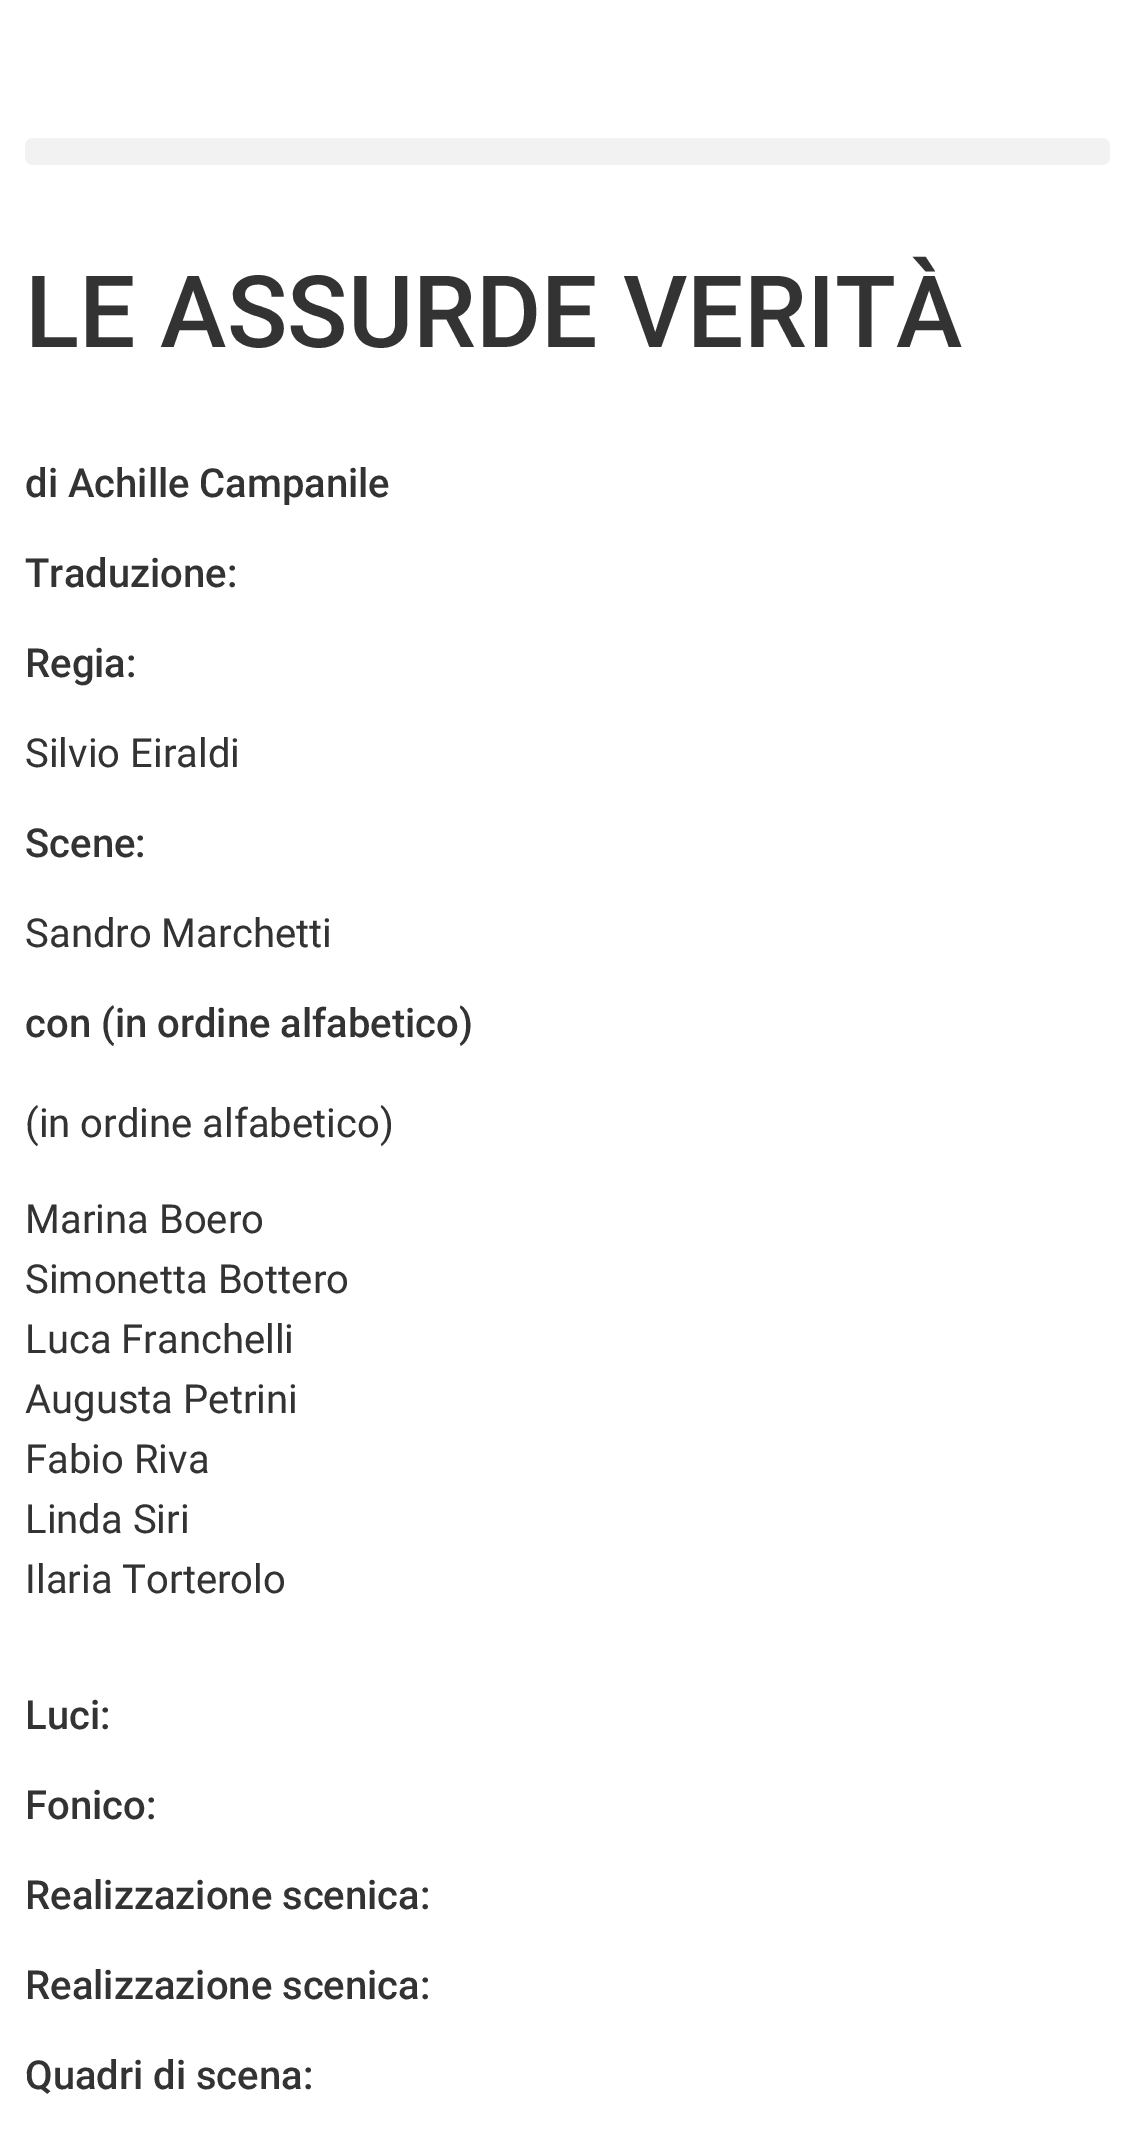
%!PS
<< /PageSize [1133 2151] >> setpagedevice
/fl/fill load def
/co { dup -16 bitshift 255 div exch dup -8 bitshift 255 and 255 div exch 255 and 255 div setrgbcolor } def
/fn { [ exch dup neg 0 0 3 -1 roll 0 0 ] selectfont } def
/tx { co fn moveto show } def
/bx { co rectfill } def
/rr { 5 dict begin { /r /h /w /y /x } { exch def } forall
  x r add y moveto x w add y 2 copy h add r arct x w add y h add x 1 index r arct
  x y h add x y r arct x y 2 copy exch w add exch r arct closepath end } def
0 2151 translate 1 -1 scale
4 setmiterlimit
0 0 1133 2151 16#FFFFFF bx
16#F2F2F2 co
25 138 1085 27 8 rr fl
(LE ASSURDE VERITÀ) 25 347 /Roboto-Medium 100 16#333333 tx
(di Achille Campanile) 25 497 /Roboto-Medium 40 16#333333 tx
(Traduzione:) 25 587 /Roboto-Medium 40 16#333333 tx
(Regia:) 25 677 /Roboto-Medium 40 16#333333 tx
(Silvio Eiraldi) 25 767 /Roboto-Regular 40 16#333333 tx
(Scene:) 25 857 /Roboto-Medium 40 16#333333 tx
(Sandro Marchetti) 25 947 /Roboto-Regular 40 16#333333 tx
(con \(in ordine alfabetico\)) 25 1037 /Roboto-Medium 40 16#333333 tx
(\(in ordine alfabetico\)) 25 1137 /Roboto-Regular 40 16#333333 tx
(Marina Boero) 25 1233 /Roboto-Regular 40 16#333333 tx
(Simonetta Bottero) 25 1293 /Roboto-Regular 40 16#333333 tx
(Luca Franchelli) 25 1353 /Roboto-Regular 40 16#333333 tx
(Augusta Petrini) 25 1413 /Roboto-Regular 40 16#333333 tx
(Fabio Riva) 25 1473 /Roboto-Regular 40 16#333333 tx
(Linda Siri) 25 1533 /Roboto-Regular 40 16#333333 tx
(Ilaria Torterolo) 25 1593 /Roboto-Regular 40 16#333333 tx
(Luci:) 25 1729 /Roboto-Medium 40 16#333333 tx
(Fonico:) 25 1819 /Roboto-Medium 40 16#333333 tx
(Realizzazione scenica:) 25 1909 /Roboto-Medium 40 16#333333 tx
(Realizzazione scenica:) 25 1999 /Roboto-Medium 40 16#333333 tx
(Quadri di scena:) 25 2089 /Roboto-Medium 40 16#333333 tx
showpage
